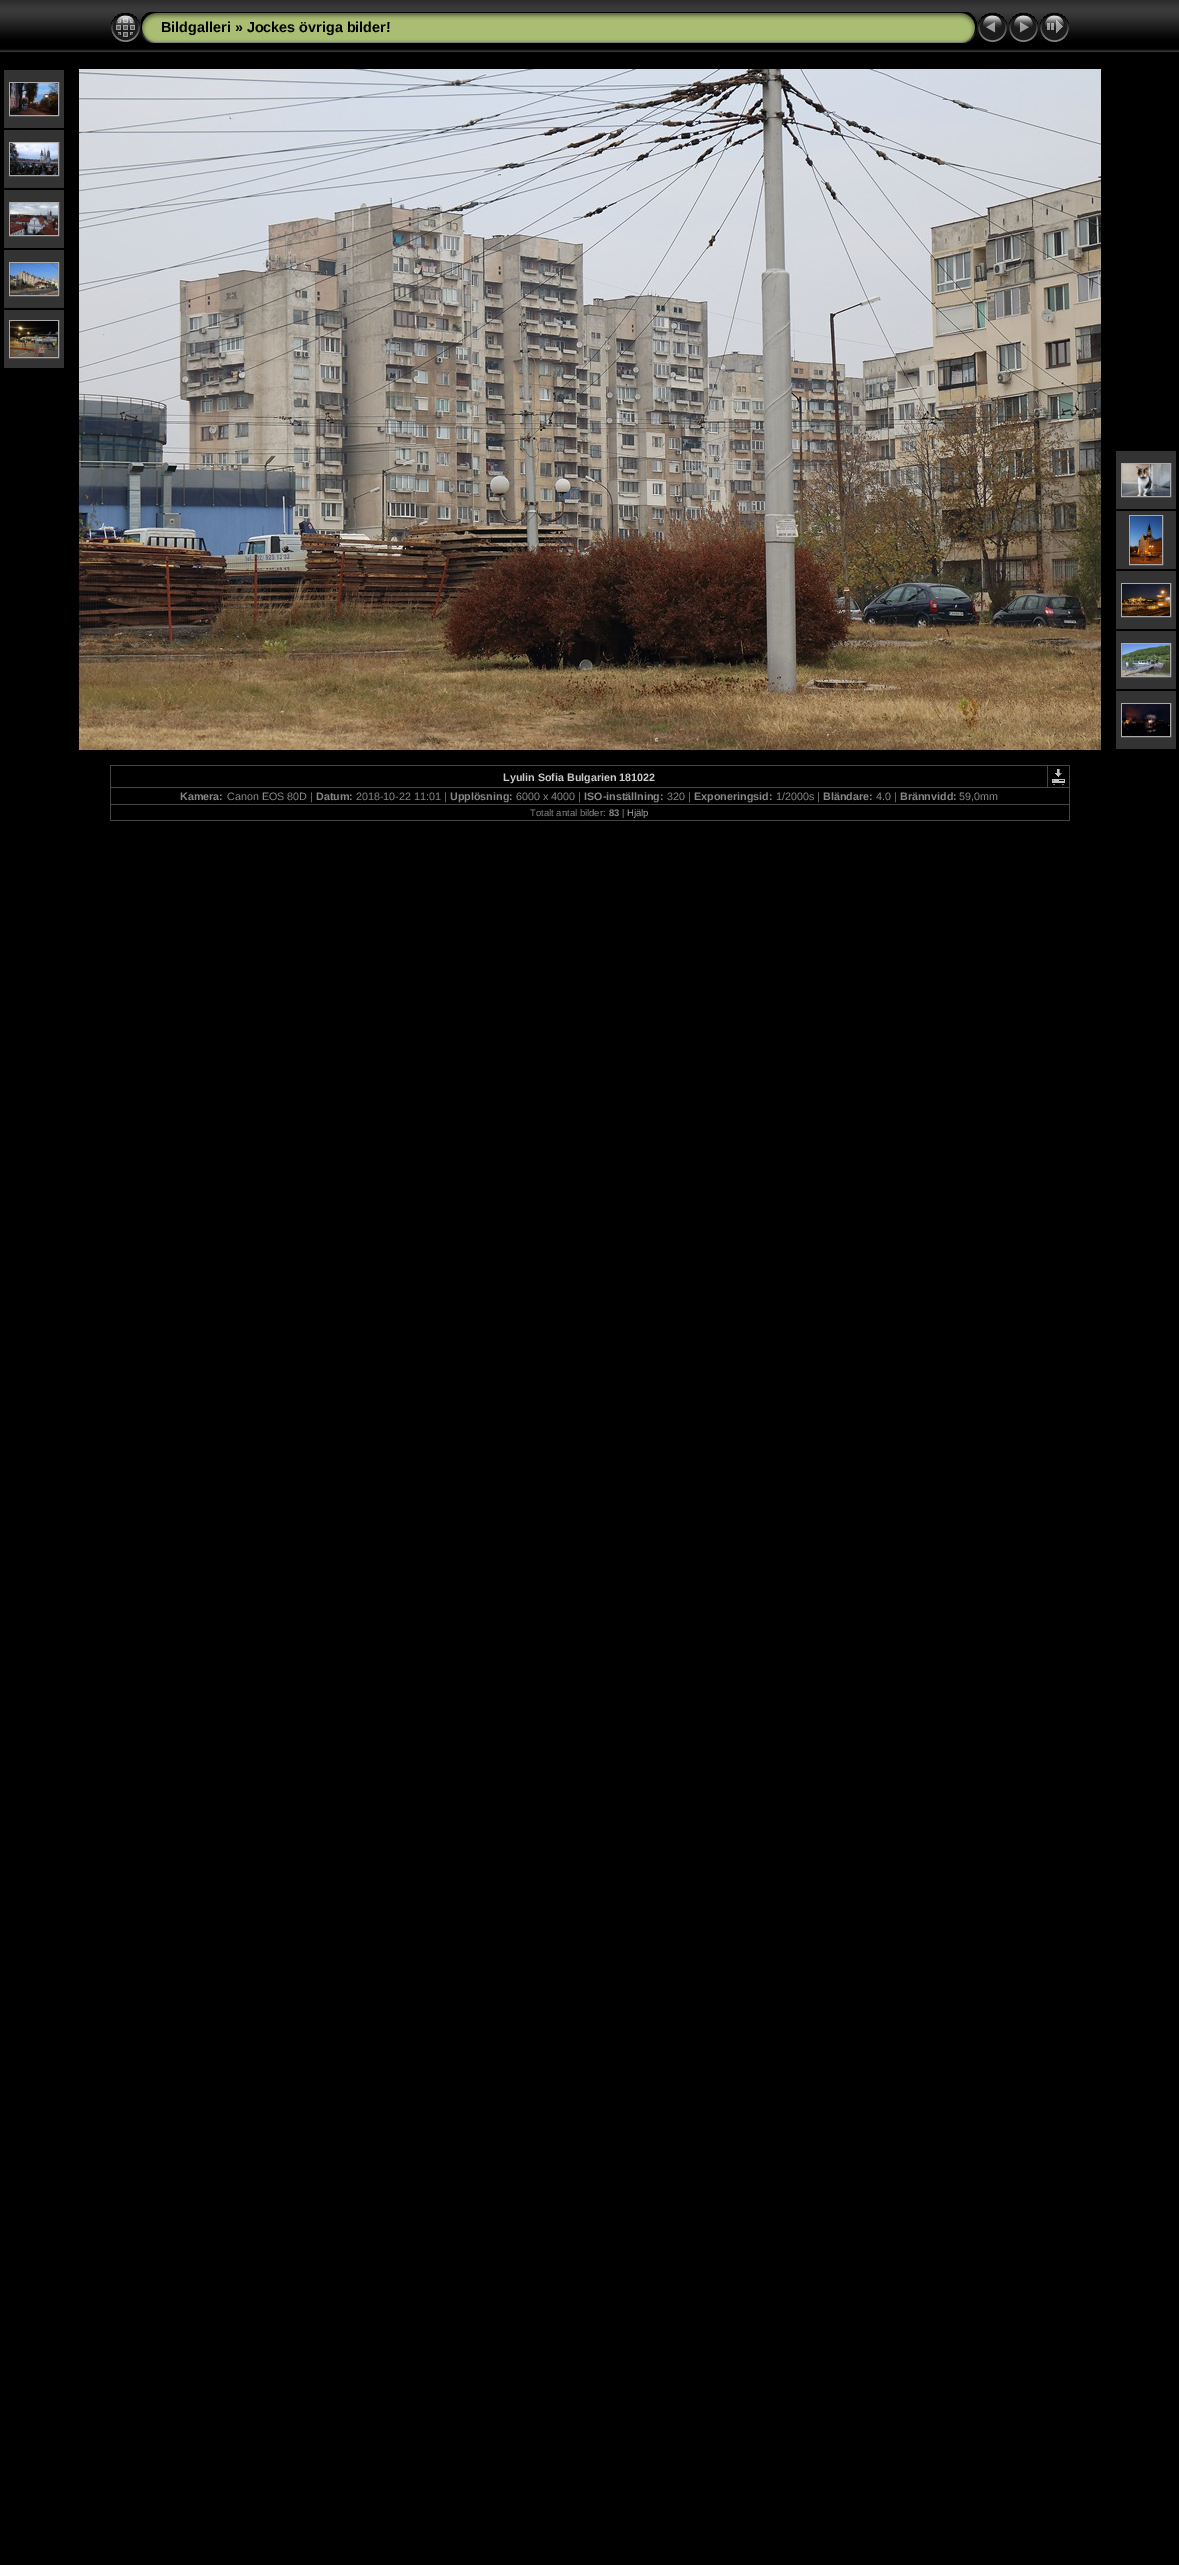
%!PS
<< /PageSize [1179 2565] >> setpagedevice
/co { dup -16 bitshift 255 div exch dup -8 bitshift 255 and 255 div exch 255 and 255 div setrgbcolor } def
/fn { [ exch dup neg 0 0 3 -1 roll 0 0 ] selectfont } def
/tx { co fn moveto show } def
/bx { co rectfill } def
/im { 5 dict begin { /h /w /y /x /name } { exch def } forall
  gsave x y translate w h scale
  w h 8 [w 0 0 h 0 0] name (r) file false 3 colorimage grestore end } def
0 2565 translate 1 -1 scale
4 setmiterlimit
0 0 1179 2565 16#000000 bx
(media/1.raw) 0 0 1179 52 im
(media/2.raw) 111 13 29 29 im
(media/3.raw) 141 12 20 31 im
(media/4.raw) 161 12 796 31 im
(media/5.raw) 957 12 20 31 im
(media/6.raw) 978 13 29 29 im
(media/7.raw) 1009 13 29 29 im
(media/8.raw) 1040 13 29 29 im
4 70 60 58 16#333333 bx
16#AAAAAA co
9.5 82.5 49 33 rectstroke
(media/9.raw) 10 83 48 32 im
4 130 60 58 16#333333 bx
16#AAAAAA co
9.5 142.5 49 33 rectstroke
(media/10.raw) 10 143 48 32 im
4 190 60 58 16#333333 bx
16#AAAAAA co
9.5 202.5 49 33 rectstroke
(media/11.raw) 10 203 48 32 im
4 250 60 58 16#333333 bx
16#AAAAAA co
9.5 262.5 49 33 rectstroke
(media/12.raw) 10 263 48 32 im
4 310 60 58 16#333333 bx
16#AAAAAA co
9.5 320.5 49 37 rectstroke
(media/13.raw) 10 321 48 36 im
(media/14.raw) 78 68 1024 683 im
1116 451 60 58 16#333333 bx
16#AAAAAA co
1121.5 463.5 49 33 rectstroke
(media/15.raw) 1122 464 48 32 im
1116 511 60 58 16#333333 bx
16#AAAAAA co
1129.5 515.5 33 49 rectstroke
(media/16.raw) 1130 516 32 48 im
1116 571 60 58 16#333333 bx
16#AAAAAA co
1121.5 583.5 49 33 rectstroke
(media/17.raw) 1122 584 48 32 im
1116 631 60 58 16#333333 bx
16#AAAAAA co
1121.5 643.5 49 33 rectstroke
(media/18.raw) 1122 644 48 32 im
1116 691 60 58 16#333333 bx
16#AAAAAA co
1121.5 703.5 49 33 rectstroke
(media/19.raw) 1122 704 48 32 im
110 765 960 1 16#444444 bx
1069 765 1 56 16#444444 bx
110 820 960 1 16#444444 bx
110 765 1 56 16#444444 bx
110 787 960 1 16#444444 bx
1047 765 1 23 16#444444 bx
(media/20.raw) 1052 769 13 16 im
110 804 960 1 16#444444 bx
(Bildgalleri » Jockes övriga bilder!) 161 32 /LiberationSans-Bold 14.4 16#000000 tx
(Lyulin Sofia Bulgarien 181022) 503 781 /LiberationSans-Bold 10.75 16#CCCCCC tx
(Kamera:) 180 800 /LiberationSans-Bold 10.75 16#888888 tx
(Canon EOS 80D |) 227 800 /LiberationSans-Regular 10.75 16#888888 tx
(Datum:) 316 800 /LiberationSans-Bold 10.75 16#888888 tx
(2018-10-22 11:01 |) 356 800 /LiberationSans-Regular 10.75 16#888888 tx
(Upplösning:) 450 800 /LiberationSans-Bold 10.75 16#888888 tx
(6000 x 4000 |) 516 800 /LiberationSans-Regular 10.75 16#888888 tx
(ISO-inställning:) 584 800 /LiberationSans-Bold 10.75 16#888888 tx
(320 |) 667 800 /LiberationSans-Regular 10.75 16#888888 tx
(Exponeringsid:) 694 800 /LiberationSans-Bold 10.75 16#888888 tx
(1/2000s |) 776 800 /LiberationSans-Regular 10.75 16#888888 tx
(Bländare:) 823 800 /LiberationSans-Bold 10.75 16#888888 tx
(4.0 |) 876 800 /LiberationSans-Regular 10.75 16#888888 tx
(Brännvidd:) 900 800 /LiberationSans-Bold 10.75 16#888888 tx
(59,0mm) 959 800 /LiberationSans-Regular 10.75 16#888888 tx
(Totalt antal bilder:) 530 816 /LiberationSans-Regular 9.5 16#888888 tx
(83) 609 816 /LiberationSans-Bold 9.5 16#888888 tx
(|) 622 816 /LiberationSans-Regular 9.5 16#888888 tx
(Hjälp) 627 816 /LiberationSans-Regular 9.5 16#AAAAAA tx
showpage
